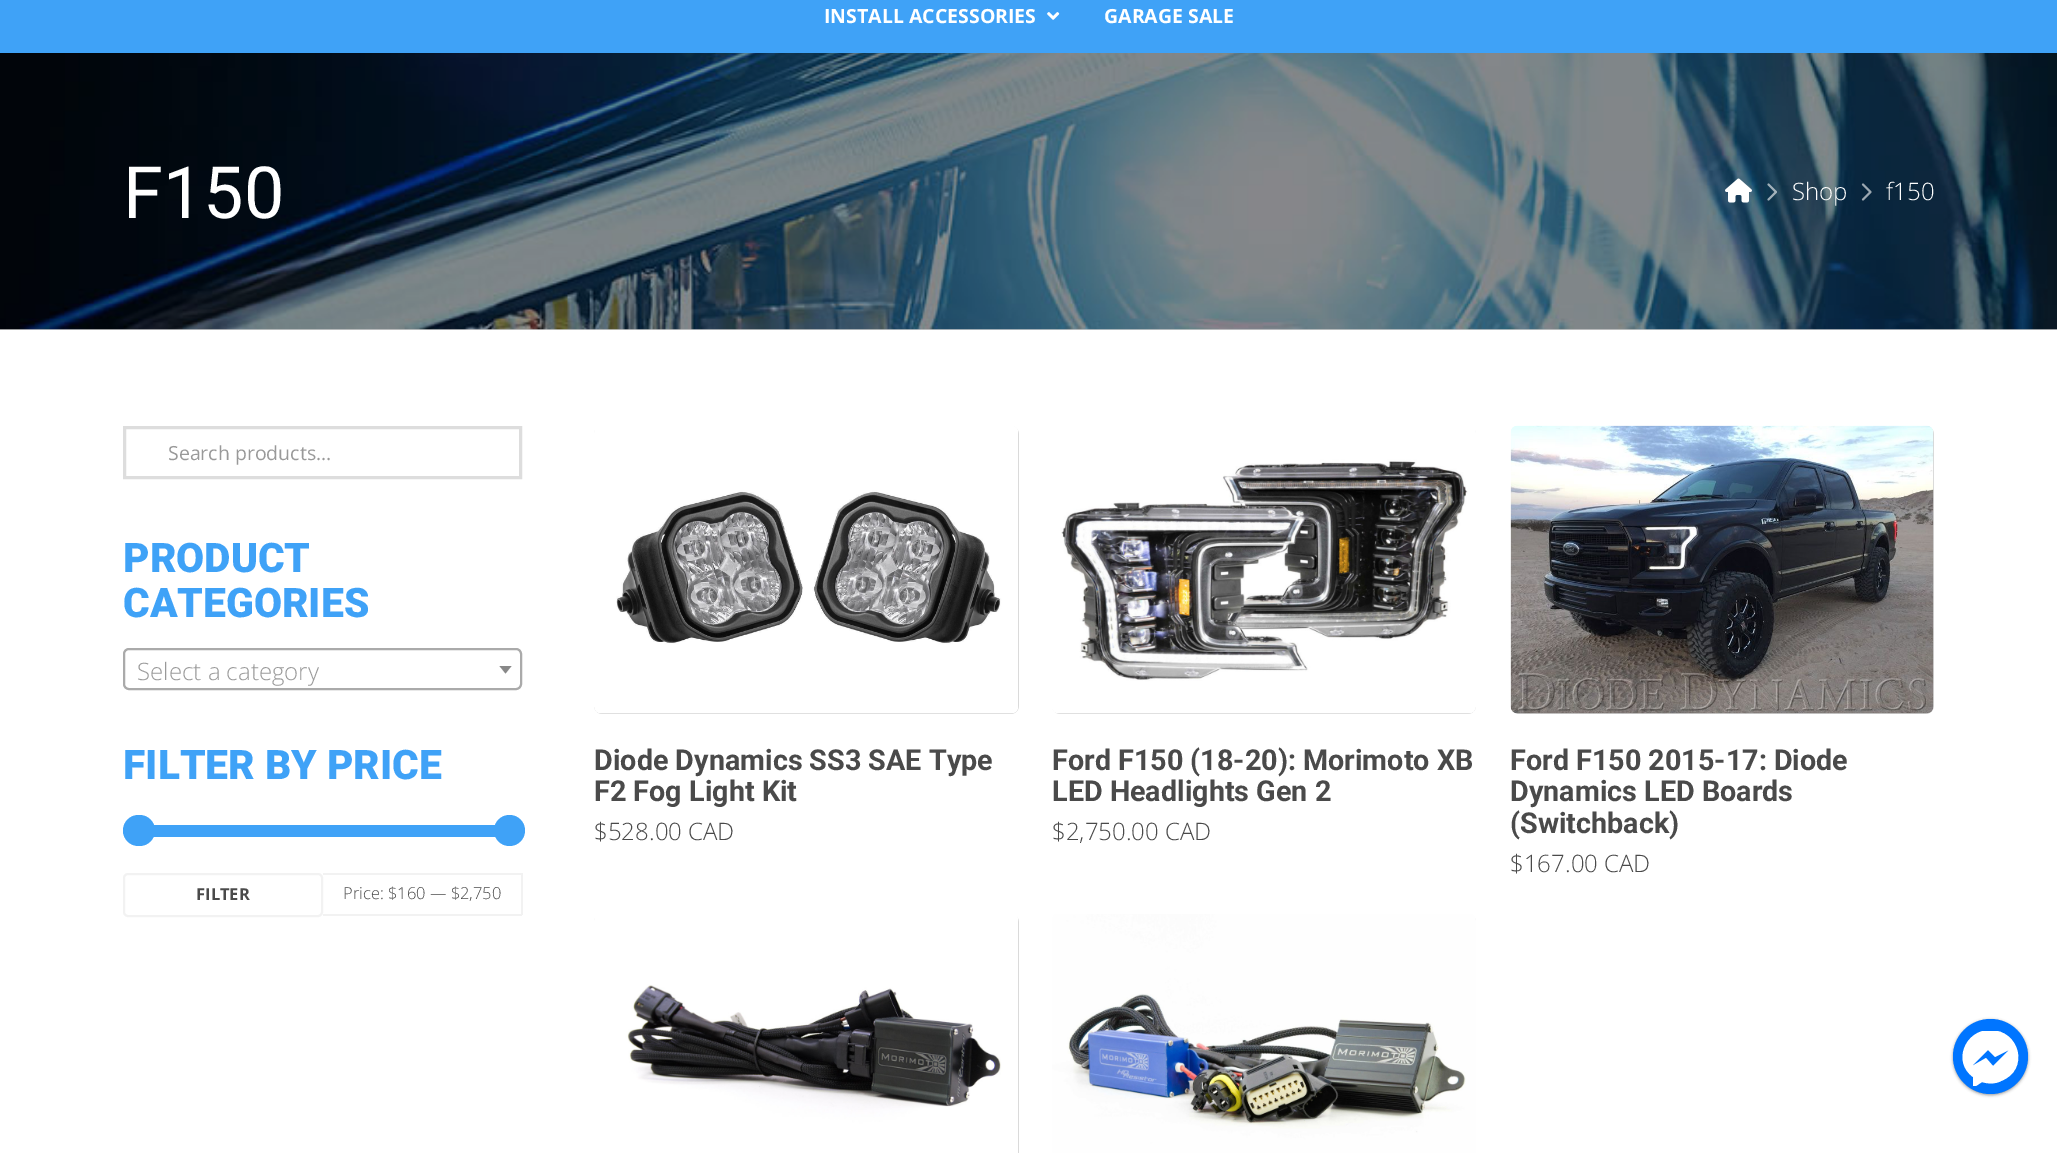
%!PS
<< /PageSize [2057 1153] /PageUsesTransparency true >> setpagedevice
/mt/moveto load def
/li/lineto load def
/ct/curveto load def
/cp/closepath load def
/fl/fill load def
/st/stroke load def
/gs/gsave load def
/gr/grestore load def
/lw/setlinewidth load def
/co { dup -16 bitshift 255 div exch dup -8 bitshift 255 and 255 div exch 255 and 255 div setrgbcolor } def
/fn { [ exch dup neg 0 0 3 -1 roll 0 0 ] selectfont } def
/tx { co fn moveto show } def
/bx { co rectfill } def
/al { dup .setfillconstantalpha .setstrokeconstantalpha } def
/ci { newpath 0 360 arc closepath } def
/rr { 5 dict begin { /r /h /w /y /x } { exch def } forall
  x r add y moveto x w add y 2 copy h add r arct x w add y h add x 1 index r arct
  x y h add x y r arct x y 2 copy exch w add exch r arct closepath end } def
/sh { 12 dict begin { /a /b /q /h /w /y /x } { exch def } forall gsave /was 0 def
  9 -2 -9 { dup b mul 4 div /e exch def 1 sub .425 mul 2.718 exch exp 1 add a .99 .min exch div /now exch def
    1 1 now sub 1 was sub div sub al /was now def
    w h .min e 2 mul add 0 gt { x e sub y e sub w e 2 mul add h e 2 mul add
      q e add b .6 mul add w h .min 2 div e add .min 0 .max rr fill } if } for grestore end } def
/im { 5 dict begin { /h /w /y /x /name } { exch def } forall
  gsave x y translate w h scale
  w h 8 [w 0 0 h 0 0] name (r) file false 3 colorimage grestore end } def
0 .pushpdf14devicefilter
0 1153 translate 1 -1 scale
4 setmiterlimit
0 0 2057 1153 16#FFFFFF bx
0 329 2057 1 16#CCCCCC bx
0 0 2057 53 16#3FA2F7 bx
(media/1.raw) 1047 12 13 8 im
(media/2.raw) 0 53 2057 277 im
(media/3.raw) 1725 178 27 25 im
(media/4.raw) 1767 183 10 18 im
(media/5.raw) 1861 183 11 18 im
16#DDDDDD co
3 lw
124.5 427.5 396 50 rectstroke
16#AAAAAA co
2 lw
124 649 397 40 5 rr st
16#888888 co
499.5 666 mt 511.5 666 li 505.5 673.5 li cp fl
16#3FA2F7 co
123 825 399 12 6 rr fl
123 815 32 31 15.5 rr fl
509.5 830.5 15.5 ci fl
16#F2F2F2 co
124 874 198 42 4 rr st
323 873 199 2 16#F2F2F2 bx
521 873 2 42 16#F2F2F2 bx
323 914 199 2 16#F2F2F2 bx
16#D5D5D5 co
594 426 425 288 8 rr fl
(media/6.raw) 594 426 425 288 im
1052 426 424 288 8 rr fl
(media/7.raw) 1052 426 424 288 im
1511 426 423 288 8 rr fl
(media/8.raw) 1510 425 424 289 im
594 914 425 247 8 rr fl
(media/9.raw) 594 914 425 239 im
(media/10.raw) 1052 914 424 239 im
16#000000 co
1953 1020 75 75 37.5 1.5 .4 sh
16#0075FF co
1990.5 1056.5 37.5 ci fl
gs
1962 1031 57 55 rectclip
16#FFFFFF co
1990 1030 mt 1965 1030 1952 1062 1973 1077 ct 1973 1088 li 1982 1082 li 1988 1084 1996 1084 2001 1081 ct 2030 1070 2020 1030 1990 1030 ct cp 1993 1066 mt 1986 1058 li 1972 1066 li 1988 1050 li 1995 1057 li 2009 1050 li cp fl
gr
(INSTALL ACCESSORIES) 824 23 /OpenSans-Bold 19.5 16#FFFFFF tx
(GARAGE SALE) 1104 23 /OpenSans-Bold 19.5 16#FFFFFF tx
(F150) 123 218 /Roboto-Regular 72 16#FFFFFF tx
(Shop) 1792 200 /OpenSans-Light 24 16#FFFFFF tx
(f150) 1886 200 /OpenSans-Light 24 16#FFFFFF tx
(Search products…) 168 460 /OpenSans-Regular 19.5 16#999999 tx
(PRODUCT) 123 572 /Roboto-Black 40.75 16#3FA2F7 tx
(CATEGORIES) 123 617 /Roboto-Black 40.75 16#3FA2F7 tx
(Select a category) 137 680 /OpenSans-Light 24 16#999999 tx
(FILTER BY PRICE) 123 779 /Roboto-Black 40.75 16#3FA2F7 tx
(FILTER) 196 900 /OpenSans-Bold 16.5 16#4A4A4A tx
(Price: $160 — $2,750) 343 899 /OpenSans-Light 16.5 16#4A4A4A tx
(Diode Dynamics SS3 SAE Type) 594 770 /Roboto-Bold 28.75 16#4A4A4A tx
(F2 Fog Light Kit) 594 801 /Roboto-Bold 28.75 16#4A4A4A tx
($528.00 CAD) 594 840 /OpenSans-Light 24 16#4A4A4A tx
(Ford F150 \(18-20\): Morimoto XB) 1052 770 /Roboto-Bold 28.75 16#4A4A4A tx
(LED Headlights Gen 2) 1052 801 /Roboto-Bold 28.75 16#4A4A4A tx
($2,750.00 CAD) 1052 840 /OpenSans-Light 24 16#4A4A4A tx
(Ford F150 2015-17: Diode) 1510 770 /Roboto-Bold 28.75 16#4A4A4A tx
(Dynamics LED Boards) 1510 801 /Roboto-Bold 28.75 16#4A4A4A tx
(\(Switchback\)) 1510 833 /Roboto-Bold 28.75 16#4A4A4A tx
($167.00 CAD) 1510 872 /OpenSans-Light 24 16#4A4A4A tx
.poppdf14devicefilter showpage
